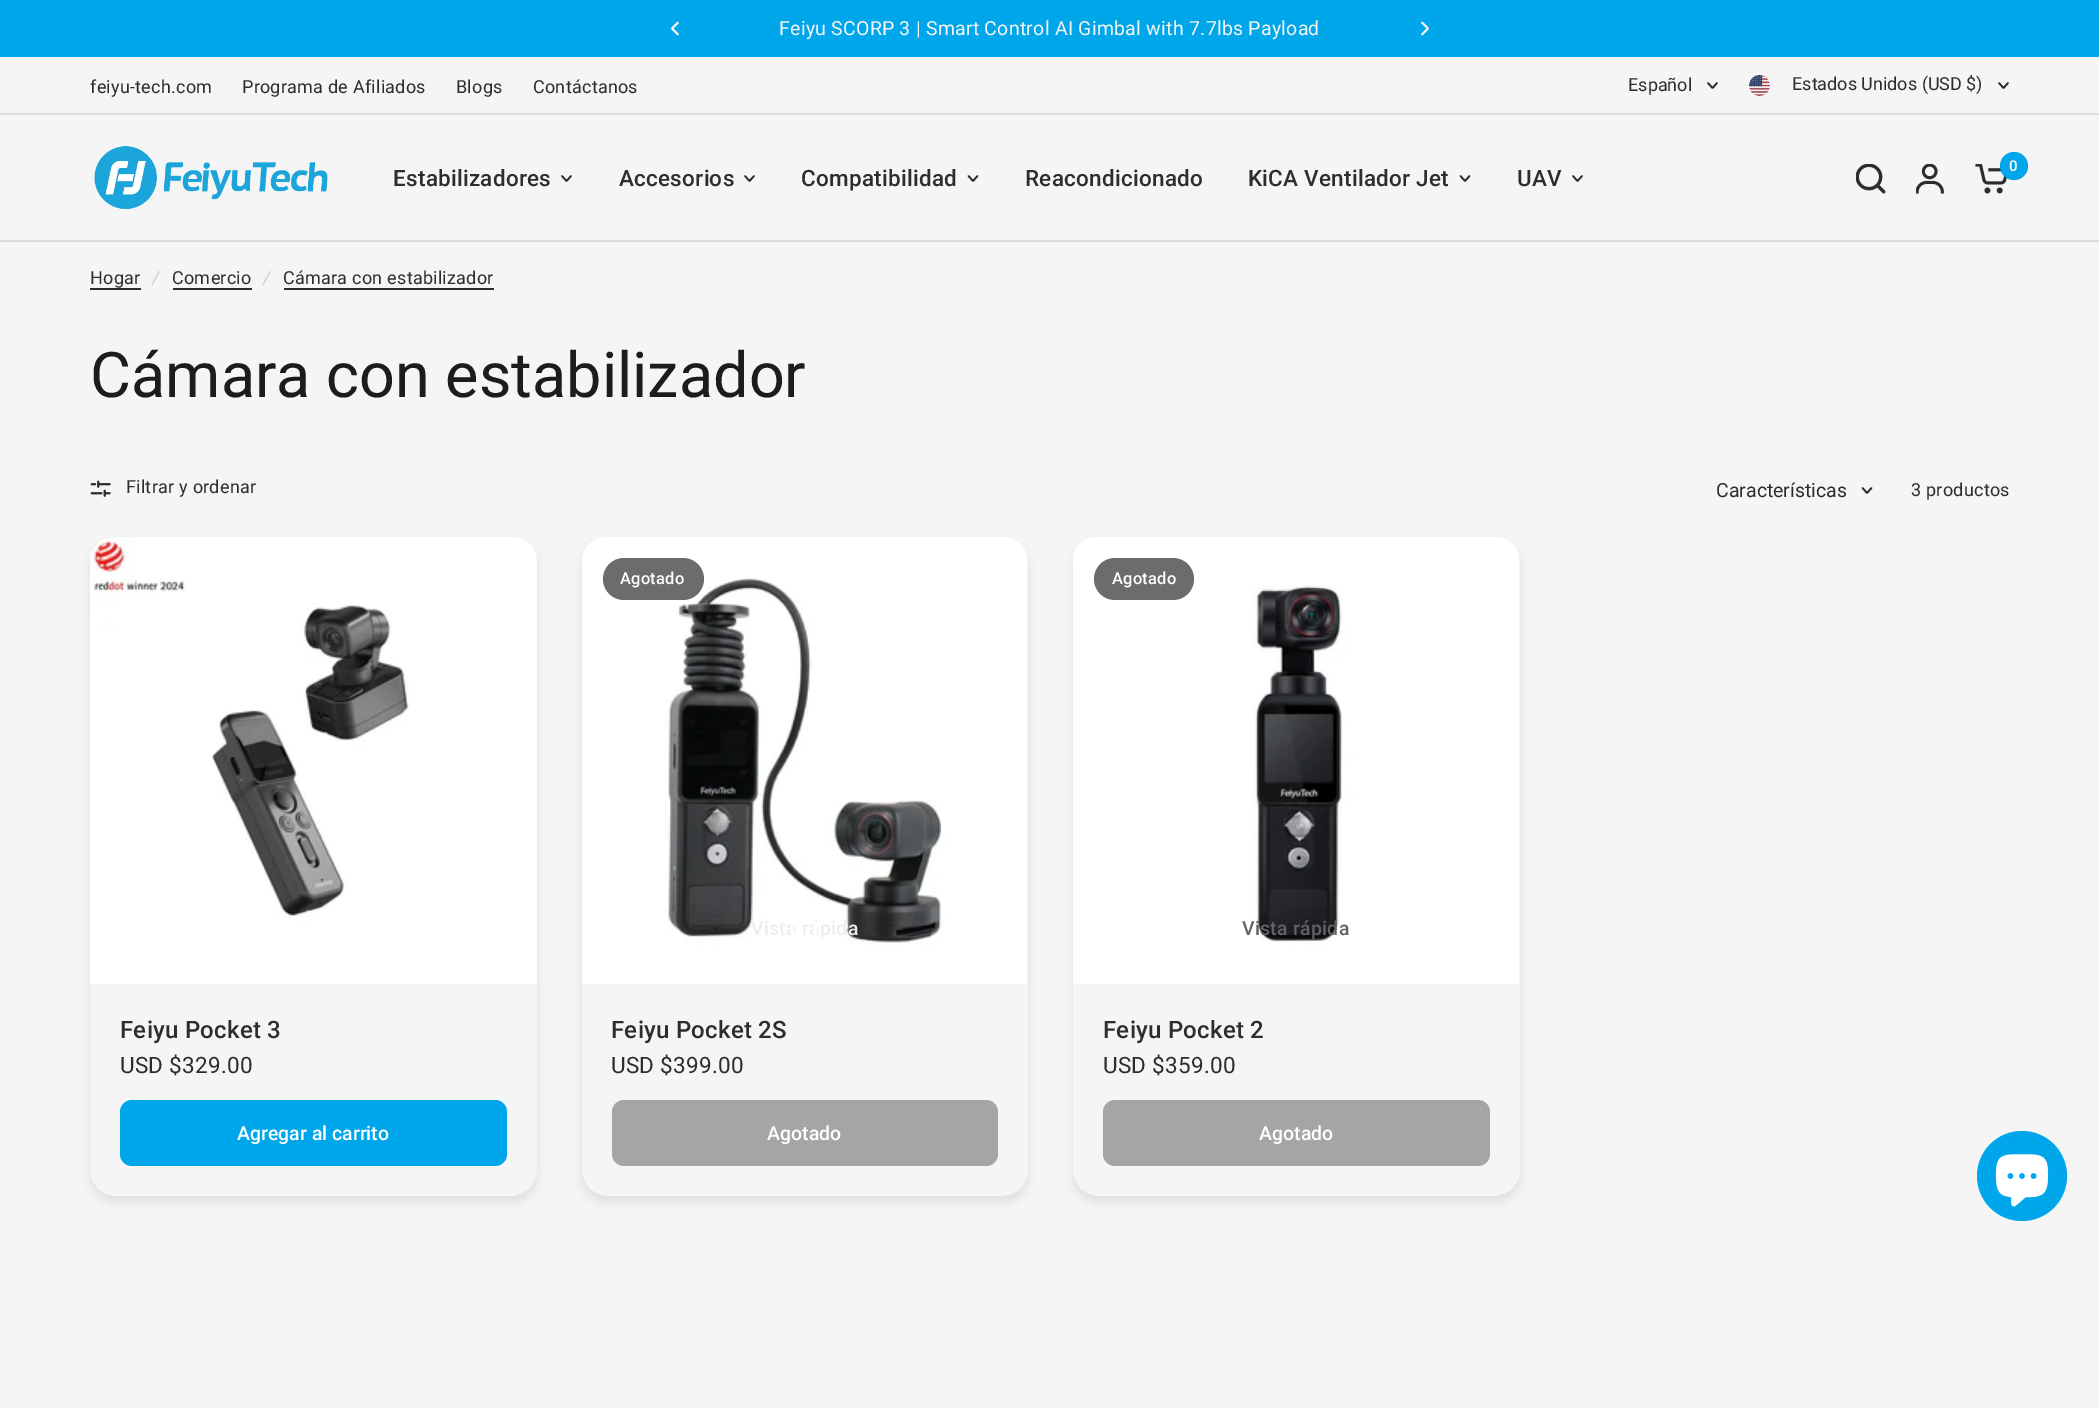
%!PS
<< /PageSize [2099 1408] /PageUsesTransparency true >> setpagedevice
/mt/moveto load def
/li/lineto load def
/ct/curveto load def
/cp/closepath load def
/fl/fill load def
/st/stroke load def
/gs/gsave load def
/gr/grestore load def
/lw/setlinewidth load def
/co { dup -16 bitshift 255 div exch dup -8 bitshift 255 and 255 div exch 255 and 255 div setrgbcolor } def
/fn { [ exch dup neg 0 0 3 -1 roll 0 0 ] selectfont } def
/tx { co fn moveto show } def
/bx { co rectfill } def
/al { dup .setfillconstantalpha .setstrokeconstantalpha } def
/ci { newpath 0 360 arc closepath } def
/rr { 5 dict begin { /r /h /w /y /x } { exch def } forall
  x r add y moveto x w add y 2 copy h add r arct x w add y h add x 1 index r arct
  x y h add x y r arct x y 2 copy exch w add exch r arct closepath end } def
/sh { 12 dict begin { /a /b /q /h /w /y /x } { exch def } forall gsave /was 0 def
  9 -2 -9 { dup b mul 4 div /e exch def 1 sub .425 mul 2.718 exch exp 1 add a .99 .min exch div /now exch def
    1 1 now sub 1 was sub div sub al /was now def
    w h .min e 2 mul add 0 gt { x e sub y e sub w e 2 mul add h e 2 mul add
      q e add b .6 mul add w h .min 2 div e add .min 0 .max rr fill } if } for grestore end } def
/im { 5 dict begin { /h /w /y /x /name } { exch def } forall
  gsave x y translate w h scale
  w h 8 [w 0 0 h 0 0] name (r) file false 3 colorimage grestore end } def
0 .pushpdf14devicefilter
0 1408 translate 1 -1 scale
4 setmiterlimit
0 0 2099 1408 16#F5F5F5 bx
0 0 2099 57 16#00A6EA bx
16#F5F5F5 co
1.8 lw
1 setlinecap
1 setlinejoin
678 22.5 mt 672 28.5 li 678 34.5 li st
1422 22.5 mt 1428 28.5 li 1422 34.5 li st
0 113 2099 2 16#DADCE0 bx
16#2C2D2E co
1.7 lw
1717 83 mt 1712.5 88 li 1708 83 li st
(media/1.raw) 1749 75 21 21 im
2008 83 mt 2003.5 88 li 1999 83 li st
(media/2.raw) 1856 164 30 30 im
(media/3.raw) 1916 164 28 30 im
(media/4.raw) 1975 164 32 30 im
16#00A6EA co
2014 166 14 ci fl
(media/5.raw) 94 146 234 64 im
16#2C2D2E co
571 176 mt 566.5 181 li 562 176 li st
754 176 mt 749.5 181 li 745 176 li st
977.5 176 mt 973 181 li 968.5 176 li st
1469.5 176 mt 1465 181 li 1460.5 176 li st
1582 176 mt 1577.5 181 li 1573 176 li st
0 240 2099 2 16#DADCE0 bx
90 288 51 2 16#2C2D2E bx
173 288 79 2 16#2C2D2E bx
284 288 210 2 16#2C2D2E bx
(media/6.raw) 90 480 21 17 im
1871.5 488 mt 1867 493 li 1862.5 488 li st
gs
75 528 mt 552 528 li 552 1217 li 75 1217 li cp 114 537 mt 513 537 li 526.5 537 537 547.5 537 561 ct 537 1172 li 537 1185.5 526.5 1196 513 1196 ct 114 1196 li 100.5 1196 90 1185.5 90 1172 ct 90 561 li 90 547.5 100.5 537 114 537 ct cp eoclip newpath
16#000000 co
90 543 447 659 24 4.5 .08 sh
gr
(media/7.raw) 90 537 447 447 im
16#00A6EA co
120 1100 387 66 12 rr fl
gs
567 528 mt 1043 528 li 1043 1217 li 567 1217 li cp 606 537 mt 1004 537 li 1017.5 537 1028 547.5 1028 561 ct 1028 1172 li 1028 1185.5 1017.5 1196 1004 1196 ct 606 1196 li 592.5 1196 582 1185.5 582 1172 ct 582 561 li 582 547.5 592.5 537 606 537 ct cp eoclip newpath
16#000000 co
582 543 446 659 24 4.5 .08 sh
gr
(media/8.raw) 582 537 445 447 im
16#6D6B6B co
603 558 101 42 21 rr fl
16#A5A5A5 co
612 1100 386 66 12 rr fl
gs
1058 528 mt 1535 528 li 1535 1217 li 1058 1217 li cp 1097 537 mt 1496 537 li 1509.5 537 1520 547.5 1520 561 ct 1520 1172 li 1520 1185.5 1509.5 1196 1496 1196 ct 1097 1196 li 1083.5 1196 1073 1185.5 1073 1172 ct 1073 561 li 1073 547.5 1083.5 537 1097 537 ct cp eoclip newpath
16#000000 co
1073 543 447 659 24 4.5 .08 sh
gr
(media/9.raw) 1073 537 446 447 im
16#6D6B6B co
1094 558 100 42 21 rr fl
16#A5A5A5 co
1103 1100 387 66 12 rr fl
16#00A6EA co
2022 1176 45 ci fl
(media/10.raw) 1995 1154 54 53 im
/Roboto-Regular 19.5 fn
16#F5F5F5 co
779 35 mt .25 0 (Feiyu SCORP 3 | Smart Control AI Gimbal with 7.7lbs Payload) ashow
/Roboto-Regular 18 fn
16#2C2D2E co
90 93 mt .25 0 (feiyu-tech.com) ashow
242 93 mt .25 0 (Programa de Afiliados) ashow
456 93 mt .25 0 (Blogs) ashow
533 93 mt .25 0 (Contáctanos) ashow
(Español) 1628 91 /Roboto-Regular 18 16#2C2D2E tx
(Estados Unidos \(USD $\)) 1792 90 /Roboto-Regular 18 16#2C2D2E tx
/Roboto-SemiBold 15 fn
16#F5F5F5 co
2009 171 mt .25 0 (0) ashow
/Roboto-Medium 22.5 fn
16#2C2D2E co
393 186 mt .25 0 (Estabilizadores) ashow
619 186 mt .25 0 (Accesorios) ashow
801 186 mt .25 0 (Compatibilidad) ashow
1025 186 mt .25 0 (Reacondicionado) ashow
1248 186 mt .25 0 (KiCA Ventilador Jet) ashow
1517 186 mt .25 0 (UAV) ashow
/Roboto-Regular 18 fn
90 284 mt .25 0 (Hogar) ashow
/Roboto-Italic 18 fn
16#CDCDCD co
152 284 mt .25 0 (/) ashow
/Roboto-Regular 18 fn
16#2C2D2E co
172 284 mt .25 0 (Comercio) ashow
/Roboto-Italic 18 fn
16#CDCDCD co
263 284 mt .25 0 (/) ashow
/Roboto-Regular 18 fn
16#2C2D2E co
283 284 mt .25 0 (Cámara con estabilizador) ashow
(Cámara con estabilizador) 90 397 /Roboto-Regular 63 16#1A1C1D tx
/Roboto-Regular 18 fn
16#2C2D2E co
126 493 mt .25 0 (Filtrar y ordenar) ashow
(Características) 1716 497 /Roboto-Regular 19.5 16#2C2D2E tx
/Roboto-Regular 18 fn
1911 496 mt .25 0 (3 productos) ashow
/Roboto-Medium 24 fn
120 1038 mt .25 0 (Feiyu Pocket 3) ashow
/Roboto-Regular 22.5 fn
120 1073 mt .25 0 (USD $329.00) ashow
(Agregar al carrito) 237 1140 /Roboto-Medium 19.5 16#FFFFFF tx
/Roboto-Medium 16.5 fn
620 584 mt .25 0 (Agotado) ashow
/Roboto-Medium 19.5 fn
16#ECEDED co
751 935 mt .25 0 (Vista rápida) ashow
gs
791 915 27 27 rectclip
16#FFFFFF co
2.5 lw
0 setlinecap
0 setlinejoin
804 916 mt 820 916 820 941 804 941 ct 788 941 788 916 804 916 ct st
gr
/Roboto-Medium 24 fn
16#2C2D2E co
611 1038 mt .25 0 (Feiyu Pocket 2S) ashow
/Roboto-Regular 22.5 fn
611 1073 mt .25 0 (USD $399.00) ashow
(Agotado) 767 1140 /Roboto-Medium 19.5 16#FFFFFF tx
/Roboto-Medium 16.5 fn
1112 584 mt .25 0 (Agotado) ashow
/Roboto-Medium 19.5 fn
16#626265 co
1242 935 mt .25 0 (Vista rápida) ashow
/Roboto-Medium 24 fn
16#2C2D2E co
1103 1038 mt .25 0 (Feiyu Pocket 2) ashow
/Roboto-Regular 22.5 fn
1103 1073 mt .25 0 (USD $359.00) ashow
(Agotado) 1259 1140 /Roboto-Medium 19.5 16#FFFFFF tx
.poppdf14devicefilter showpage
